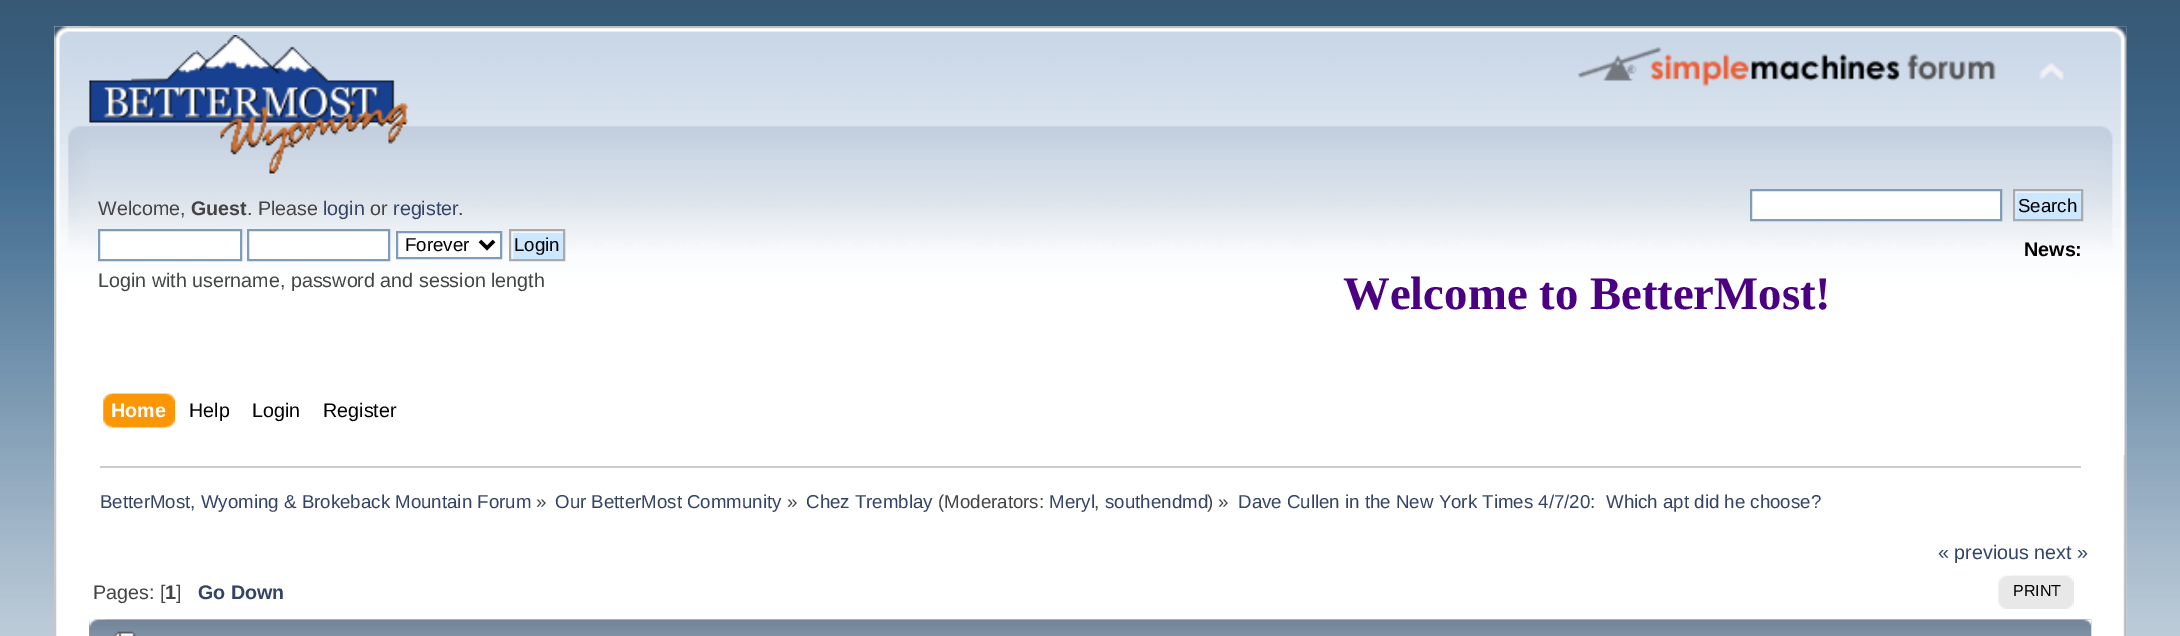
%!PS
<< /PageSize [2180 636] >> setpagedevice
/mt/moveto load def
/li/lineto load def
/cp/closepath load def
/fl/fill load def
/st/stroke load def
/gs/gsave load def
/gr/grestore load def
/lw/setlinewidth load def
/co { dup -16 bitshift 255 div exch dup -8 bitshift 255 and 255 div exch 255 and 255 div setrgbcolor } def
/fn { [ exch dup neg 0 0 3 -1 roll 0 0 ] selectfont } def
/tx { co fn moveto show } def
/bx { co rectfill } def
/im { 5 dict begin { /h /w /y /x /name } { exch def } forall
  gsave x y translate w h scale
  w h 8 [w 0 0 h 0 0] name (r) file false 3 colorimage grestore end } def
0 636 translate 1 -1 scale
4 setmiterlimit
0 0 2180 636 16#FFFFFF bx
(media/1.raw) 0 0 2180 636 im
54 26 2072 429 16#FEFEFE bx
(media/2.raw) 54 26 2073 429 im
(media/3.raw) 89 26 2038 429 im
(media/4.raw) 89 35 320 139 im
(media/5.raw) 1578 47 418 40 im
(media/6.raw) 2039 62 26 20 im
16#FFFFFF co
99 230 mt 241 230 li 241 260 li 99 260 li cp gs fl gr
16#7F9DB9 co
2 lw
st
16#FFFFFF co
248 230 mt 389 230 li 389 260 li 248 260 li cp gs fl gr
16#7F9DB9 co
st
16#FFFFFF co
397 232 mt 501 232 li 501 258 li 397 258 li cp gs fl gr
16#7F9DB9 co
st
16#000000 co
3.5 lw
480 241 mt 487 248 li 494 241 li st
(media/7.raw) 511 231 55 30 im
16#AAAAAA co
2 lw
510 230 54 30 rectstroke
16#FFFFFF co
1751 190 mt 2001 190 li 2001 220 li 1751 220 li cp gs fl gr
16#7F9DB9 co
st
(media/8.raw) 2015 191 66 28 im
16#AAAAAA co
2014 190 68 30 rectstroke
(media/9.raw) 112 393 63 35 im
(media/10.raw) 103 393 64 35 im
(media/11.raw) 54 455 2073 181 im
(media/12.raw) 2123 455 4 181 im
100 466 1981 2 16#CCCCCC bx
(media/13.raw) 1998 575 75 34 im
(media/14.raw) 2013 575 61 34 im
(media/15.raw) 89 619 2003 17 im
(media/16.raw) 105 619 1987 17 im
(media/17.raw) 113 631 23 5 im
(Welcome,) 98 215 /LiberationSans-Regular 19.7 16#444444 tx
(Guest) 191 215 /LiberationSans-Bold 19.7 16#444444 tx
(. Please) 247 215 /LiberationSans-Regular 19.7 16#444444 tx
(login) 323 215 /LiberationSans-Regular 19.7 16#334466 tx
(or) 370 215 /LiberationSans-Regular 19.7 16#444444 tx
(register) 393 215 /LiberationSans-Regular 19.7 16#334466 tx
(.) 458 215 /LiberationSans-Regular 19.7 16#444444 tx
(Forever) 405 251 /LiberationSans-Regular 18.7 16#000000 tx
(Login) 514 251 /LiberationSans-Regular 18.7 16#000000 tx
(Login with username, password and session length) 98 287 /LiberationSans-Regular 19.7 16#444444 tx
(Search) 2018 212 /LiberationSans-Regular 18.7 16#000000 tx
(News:) 2024 256 /LiberationSans-Bold 19.7 16#000000 tx
(Welcome to BetterMost!) 1343 309 /LiberationSerif-Bold 46.75 16#4B0082 tx
(Home) 111 417 /LiberationSans-Bold 19.7 16#FFFFFF tx
(Help) 189 417 /LiberationSans-Regular 19.7 16#000000 tx
(Login) 252 417 /LiberationSans-Regular 19.7 16#000000 tx
(Register) 323 417 /LiberationSans-Regular 19.7 16#000000 tx
(BetterMost, Wyoming & Brokeback Mountain Forum) 100 508 /LiberationSans-Regular 18.7 16#334466 tx
(») 536 508 /LiberationSans-Regular 18.7 16#444444 tx
(Our BetterMost Community) 555 508 /LiberationSans-Regular 18.7 16#334466 tx
(») 787 508 /LiberationSans-Regular 18.7 16#444444 tx
(Chez Tremblay) 806 508 /LiberationSans-Regular 18.7 16#334466 tx
(\(Moderators:) 938 508 /LiberationSans-Regular 18.7 16#444444 tx
(Meryl) 1049 508 /LiberationSans-Regular 18.7 16#334466 tx
(,) 1094 508 /LiberationSans-Regular 18.7 16#444444 tx
(southendmd) 1105 508 /LiberationSans-Regular 18.7 16#334466 tx
(\) ») 1207 508 /LiberationSans-Regular 18.7 16#444444 tx
(Dave Cullen in the New York Times 4/7/20:  Which apt did he choose?) 1238 508 /LiberationSans-Regular 18.7 16#334466 tx
(« previous next ») 1938 559 /LiberationSans-Regular 19.7 16#334466 tx
(Pages: [) 93 599 /LiberationSans-Regular 19.7 16#444444 tx
(1) 165 599 /LiberationSans-Bold 19.7 16#444444 tx
(]) 176 599 /LiberationSans-Regular 19.7 16#444444 tx
(Go Down) 198 599 /LiberationSans-Bold 19.7 16#334466 tx
(PRINT) 2013 596 /LiberationSans-Regular 16 16#000000 tx
showpage
